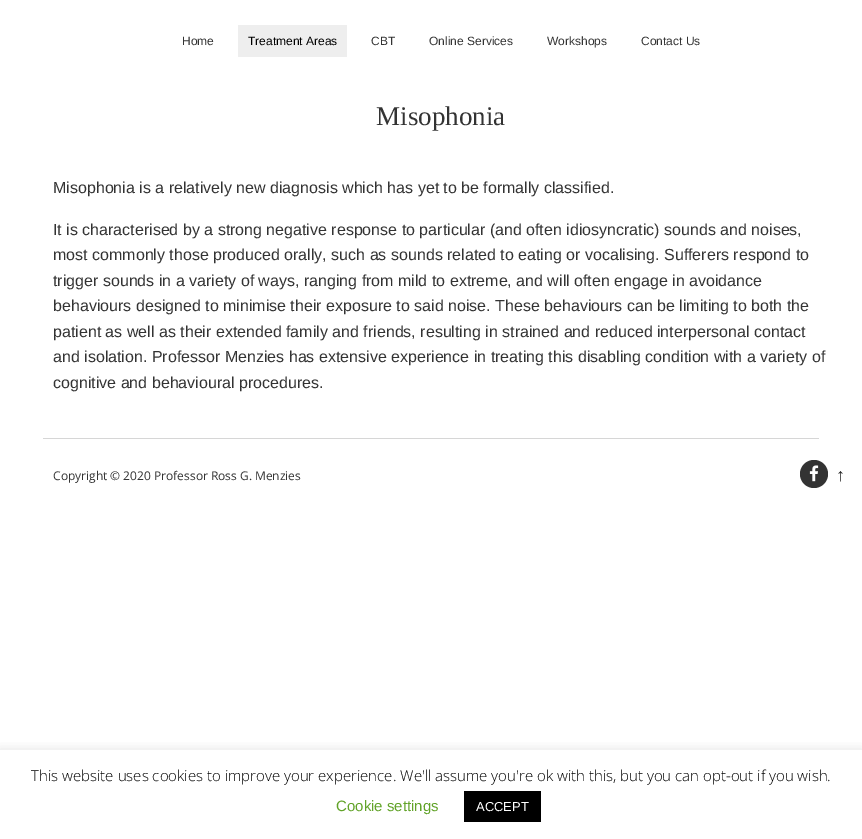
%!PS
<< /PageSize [862 839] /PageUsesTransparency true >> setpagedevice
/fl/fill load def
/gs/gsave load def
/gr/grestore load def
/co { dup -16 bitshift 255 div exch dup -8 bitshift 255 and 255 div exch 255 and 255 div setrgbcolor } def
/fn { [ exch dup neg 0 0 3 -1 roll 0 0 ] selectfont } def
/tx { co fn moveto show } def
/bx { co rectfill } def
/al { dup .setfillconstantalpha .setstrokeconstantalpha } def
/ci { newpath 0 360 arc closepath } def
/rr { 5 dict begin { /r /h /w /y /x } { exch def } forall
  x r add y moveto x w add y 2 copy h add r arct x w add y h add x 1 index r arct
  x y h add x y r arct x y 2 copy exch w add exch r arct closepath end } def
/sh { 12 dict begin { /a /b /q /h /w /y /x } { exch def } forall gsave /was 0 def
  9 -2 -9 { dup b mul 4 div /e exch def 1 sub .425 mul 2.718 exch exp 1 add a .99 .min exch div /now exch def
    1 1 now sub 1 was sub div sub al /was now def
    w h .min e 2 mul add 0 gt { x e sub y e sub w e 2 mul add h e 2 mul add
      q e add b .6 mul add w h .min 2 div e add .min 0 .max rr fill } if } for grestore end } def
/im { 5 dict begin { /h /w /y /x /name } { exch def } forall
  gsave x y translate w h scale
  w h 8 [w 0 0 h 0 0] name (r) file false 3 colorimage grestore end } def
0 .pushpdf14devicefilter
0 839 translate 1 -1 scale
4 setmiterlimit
0 0 862 839 16#FFFFFF bx
238 25 109 32 16#EEEEEE bx
43 438 776 1 16#D6D6D6 bx
16#333333 co
814 474 14 ci fl
(media/1.raw) 809 465 10 17 im
gs
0 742 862 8 rectclip
16#ACABAB co
0 749 862 89 0 5 .3 sh
gr
464 791 77 31 16#000000 bx
(Home) 182 45 /LiberationSans-Regular 12 16#333333 tx
(Treatment Areas) 248 45 /LiberationSans-Regular 12 16#000000 tx
(CBT) 371 45 /LiberationSans-Regular 12 16#333333 tx
(Online Services) 429 45 /LiberationSans-Regular 12 16#333333 tx
(Workshops) 547 45 /LiberationSans-Regular 12 16#333333 tx
(Contact Us) 641 45 /LiberationSans-Regular 12 16#333333 tx
(Misophonia) 376 125 /LiberationSerif-Regular 27 16#333333 tx
(Misophonia is a relatively new diagnosis which has yet to be formally classified.) 53 193 /LiberationSans-Regular 16 16#333333 tx
(It is characterised by a strong negative response to particular \(and often idiosyncratic\) sounds and noises,) 53 235 /LiberationSans-Regular 16 16#333333 tx
(most commonly those produced orally, such as sounds related to eating or vocalising. Sufferers respond to) 53 260 /LiberationSans-Regular 16 16#333333 tx
(trigger sounds in a variety of ways, ranging from mild to extreme, and will often engage in avoidance) 53 286 /LiberationSans-Regular 16 16#333333 tx
(behaviours designed to minimise their exposure to said noise. These behaviours can be limiting to both the) 53 311 /LiberationSans-Regular 16 16#333333 tx
(patient as well as their extended family and friends, resulting in strained and reduced interpersonal contact) 53 337 /LiberationSans-Regular 16 16#333333 tx
(and isolation. Professor Menzies has extensive experience in treating this disabling condition with a variety of) 53 362 /LiberationSans-Regular 16 16#333333 tx
(cognitive and behavioural procedures.) 53 388 /LiberationSans-Regular 16 16#333333 tx
(Copyright © 2020 Professor Ross G. Menzies) 53 480 /OpenSans-Regular 12 16#333333 tx
(↑) 836 481 /LiberationSans-Regular 18 16#1D1D1D tx
(This website uses cookies to improve your experience. We'll assume you're ok with this, but you can opt-out if you wish.) 31 781 /OpenSans-Light 15 16#000000 tx
(Cookie settings) 336 811 /LiberationSans-Regular 15 16#62A329 tx
(ACCEPT) 476 811 /LiberationSans-Regular 13 16#FFFFFF tx
.poppdf14devicefilter showpage
